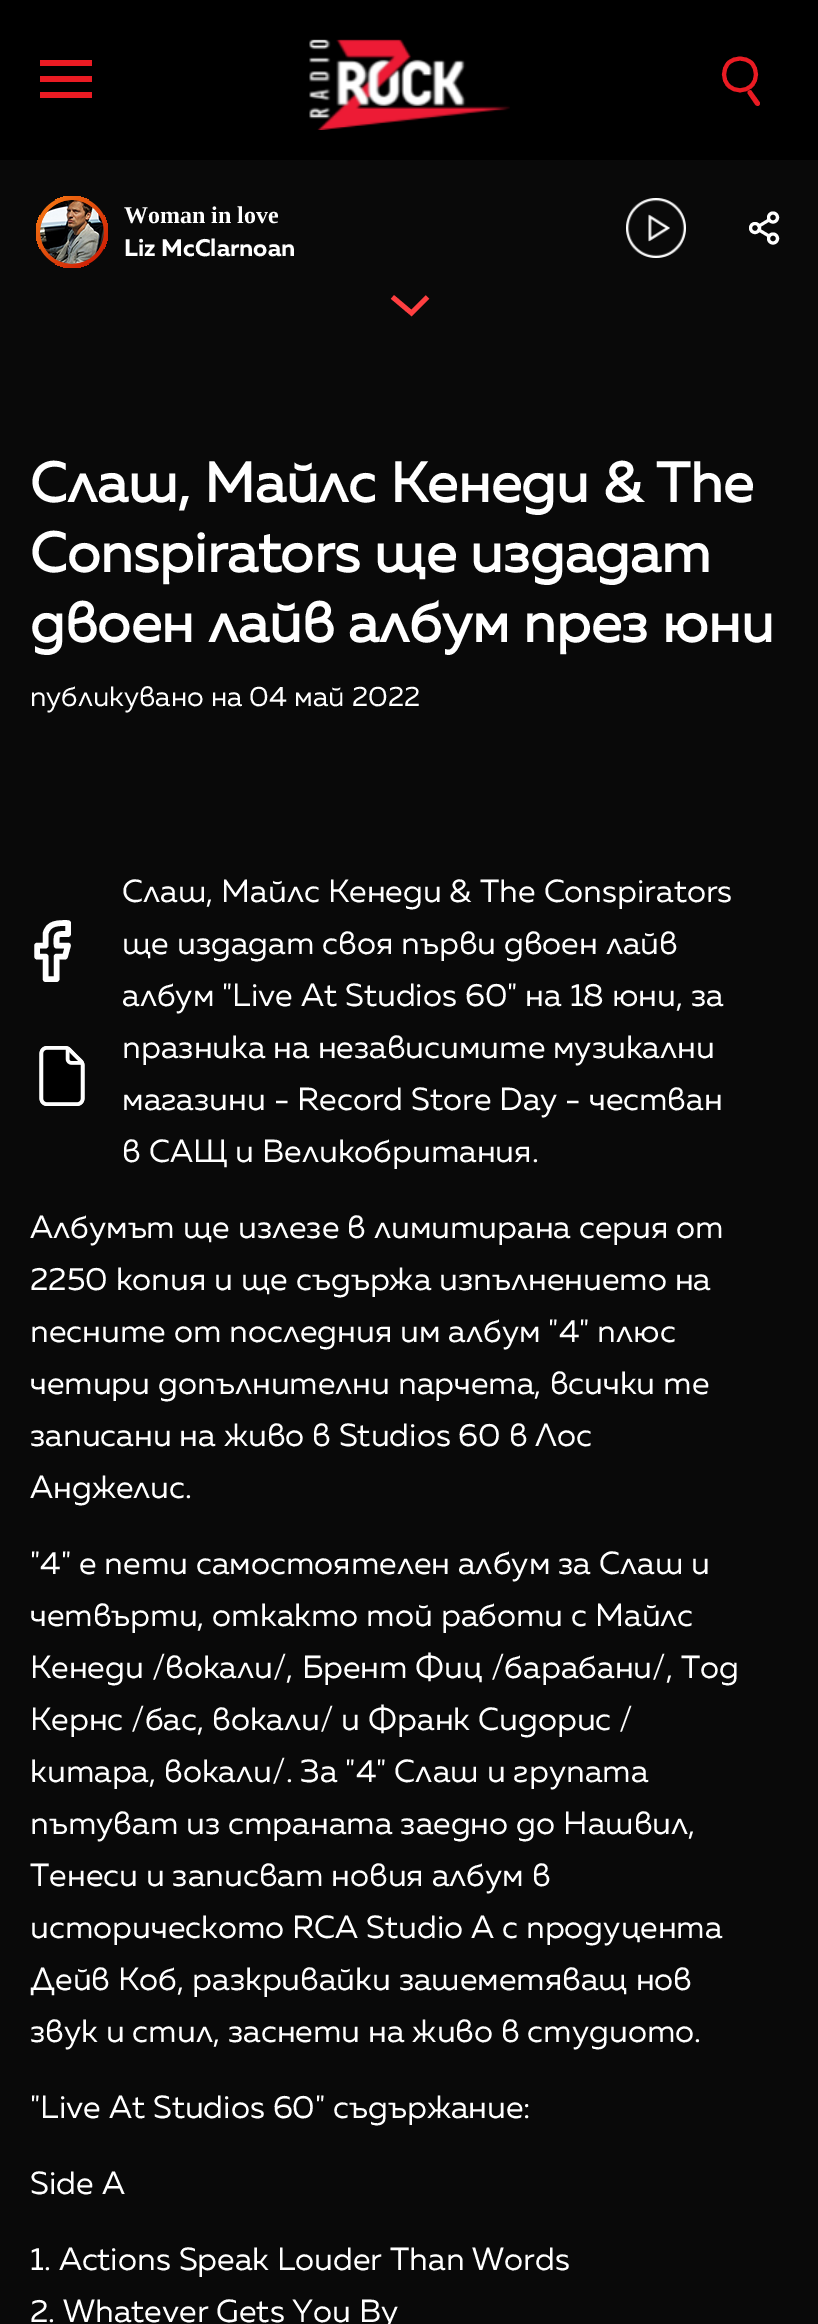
%!PS
<< /PageSize [818 2324] >> setpagedevice
/mt/moveto load def
/li/lineto load def
/ct/curveto load def
/cp/closepath load def
/fl/fill load def
/st/stroke load def
/gs/gsave load def
/gr/grestore load def
/lw/setlinewidth load def
/co { dup -16 bitshift 255 div exch dup -8 bitshift 255 and 255 div exch 255 and 255 div setrgbcolor } def
/fn { [ exch dup neg 0 0 3 -1 roll 0 0 ] selectfont } def
/tx { co fn moveto show } def
/bx { co rectfill } def
/ci { newpath 0 360 arc closepath } def
/im { 5 dict begin { /h /w /y /x /name } { exch def } forall
  gsave x y translate w h scale
  w h 8 [w 0 0 h 0 0] name (r) file false 3 colorimage grestore end } def
0 2324 translate 1 -1 scale
4 setmiterlimit
0 0 818 2324 16#090909 bx
0 0 818 160 16#000000 bx
40 76 52 6 16#EA1B23 bx
40 60 52 6 16#EA1B23 bx
40 92 52 6 16#EA1B23 bx
(media/1.raw) 309 39 201 91 im
748.5 90.5 mt 750 90 751.5 90 752 91.5 ct 759.5 102 li 760.5 103 760 104.5 759 105.5 ct 758 106 756.5 106 755.5 105 ct 748 94 li 747 93 747.5 91.5 748.5 90.5 ct cp fl
4 lw
751.5 63 mt 757.5 69.5 757.5 79.5 751.5 85.5 ct 745 92 735 92 728.5 85.5 ct 722.5 79.5 722.5 69.5 728.5 63 ct 735 57 745 57 751.5 63 ct cp st
gs 72 232 36 ci clip newpath
<< /ShadingType 2 /ColorSpace /DeviceRGB /Coords [108 268 36 196] /Extend [true true] /Function << /FunctionType 2 /Domain [0 1] /C0 [.78 .067 .012] /C1 [.976 .502 .078] /N 1 >> >> shfill gr
(media/2.raw) 40 200 64 64 im
(media/3.raw) 626 198 60 60 im
16#FFFFFF co
3 lw
755 228 4.5 ci st
773 217.5 4.5 ci st
773 238.5 4.5 ci st
1 setlinecap
1 setlinejoin
759 230 mt 769 236 li 769 220 mt 759 226 li st
16#FF3F41 co
4.8 lw
0 setlinecap
0 setlinejoin
427.5 297 mt 411.5 313 li 392.5 297 li st
16#FFFFFF co
5.6 lw
1 setlinecap
1 setlinejoin
68 923 mt 58.5 923 48 922.5 45.5 934 ct 45.5 945.5 li 37 945.5 li 37 956.5 li 45.5 956.5 li 45.5 979 li 56.5 979 li 56.5 956.5 li 65 956.5 li 68 945.5 li 56.5 945.5 li 56.5 933 55.5 934 68 934 ct cp st
(media/4.raw) 39 1046 46 60 im
(Woman in love) 124 223 /LiberationSerif-Bold 24 16#FFFFFF tx
(Liz McClarnoan) 124 256 /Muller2-Bold 24 16#FFFFFF tx
(Слаш, Майлс Кенеди & The) 30 502 /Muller-Bold 56 16#FFFFFF tx
(Conspirators ще издадат) 30 572 /Muller-Bold 56 16#FFFFFF tx
(двоен лайв албум през юни) 30 642 /Muller-Bold 56 16#FFFFFF tx
(публикувано на 04 май 2022) 30 706 /Muller-Regular 28 16#FFFFFF tx
(Слаш, Майлс Кенеди & The Conspirators) 122 902 /Muller-Regular 32 16#FFFFFF tx
(ще издадат своя първи двоен лайв) 122 954 /Muller-Regular 32 16#FFFFFF tx
(албум "Live At Studios 60" на 18 юни, за) 122 1006 /Muller-Regular 32 16#FFFFFF tx
(празника на независимите музикални) 122 1058 /Muller-Regular 32 16#FFFFFF tx
(магазини - Record Store Day - честван) 122 1110 /Muller-Regular 32 16#FFFFFF tx
(в САЩ и Великобритания.) 122 1162 /Muller-Regular 32 16#FFFFFF tx
(Албумът ще излезе в лимитирана серия от) 30 1238 /Muller-Regular 32 16#FFFFFF tx
(2250 копия и ще съдържа изпълнението на) 30 1290 /Muller-Regular 32 16#FFFFFF tx
(песните от последния им албум "4" плюс) 30 1342 /Muller-Regular 32 16#FFFFFF tx
(четири допълнителни парчета, всички те) 30 1394 /Muller-Regular 32 16#FFFFFF tx
(записани на живо в Studios 60 в Лос) 30 1446 /Muller-Regular 32 16#FFFFFF tx
(Анджелис.) 30 1498 /Muller-Regular 32 16#FFFFFF tx
("4" е пети самостоятелен албум за Слаш и) 30 1574 /Muller-Regular 32 16#FFFFFF tx
(четвърти, откакто той работи с Майлс) 30 1626 /Muller-Regular 32 16#FFFFFF tx
(Кенеди /вокали/, Брент Фиц /барабани/, Тод) 30 1678 /Muller-Regular 32 16#FFFFFF tx
(Кернс /бас, вокали/ и Франк Сидорис /) 30 1730 /Muller-Regular 32 16#FFFFFF tx
(китара, вокали/. За "4" Слаш и групата) 30 1782 /Muller-Regular 32 16#FFFFFF tx
(пътуват из страната заедно до Нашвил,) 30 1834 /Muller-Regular 32 16#FFFFFF tx
(Тенеси и записват новия албум в) 30 1886 /Muller-Regular 32 16#FFFFFF tx
(историческото RCA Studio A с продуцента) 30 1938 /Muller-Regular 32 16#FFFFFF tx
(Дейв Коб, разкривайки зашеметяващ нов) 30 1990 /Muller-Regular 32 16#FFFFFF tx
(звук и стил, заснети на живо в студиото.) 30 2042 /Muller-Regular 32 16#FFFFFF tx
("Live At Studios 60" съдържание:) 30 2118 /Muller-Regular 32 16#FFFFFF tx
(Side A) 30 2194 /Muller-Regular 32 16#FFFFFF tx
(1. Actions Speak Louder Than Words) 30 2270 /Muller-Regular 32 16#FFFFFF tx
(2. Whatever Gets You By) 30 2322 /Muller-Regular 32 16#FFFFFF tx
showpage
